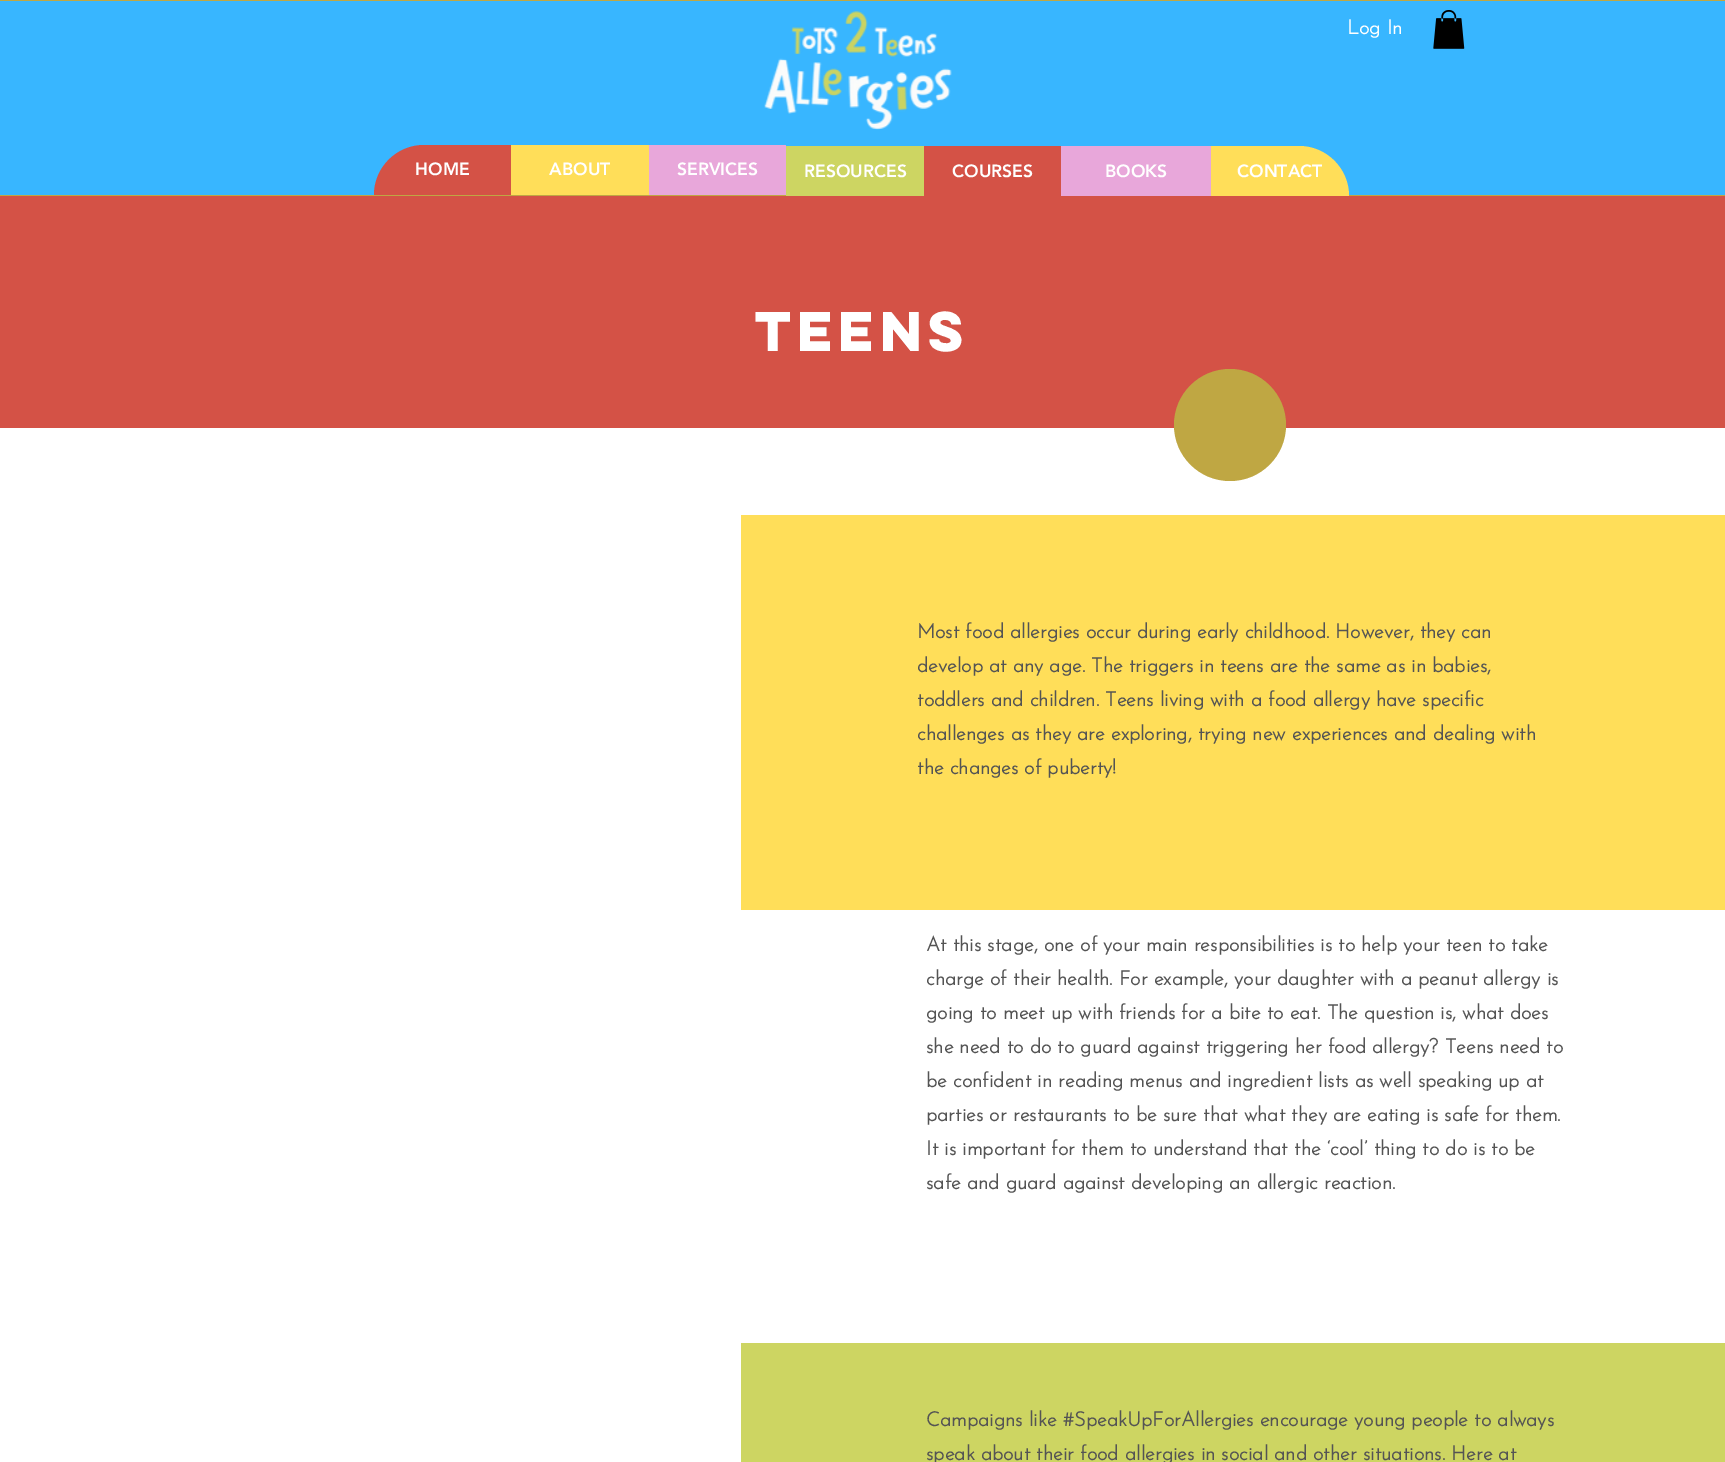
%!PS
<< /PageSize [1725 1462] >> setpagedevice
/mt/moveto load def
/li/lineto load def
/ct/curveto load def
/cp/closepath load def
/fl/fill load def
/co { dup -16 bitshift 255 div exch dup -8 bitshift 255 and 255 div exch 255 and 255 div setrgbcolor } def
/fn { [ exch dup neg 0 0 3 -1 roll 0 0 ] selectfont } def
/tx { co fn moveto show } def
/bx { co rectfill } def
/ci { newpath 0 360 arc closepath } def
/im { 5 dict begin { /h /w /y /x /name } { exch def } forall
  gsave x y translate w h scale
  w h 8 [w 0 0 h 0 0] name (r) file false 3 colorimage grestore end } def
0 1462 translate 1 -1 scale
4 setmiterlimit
0 0 1725 1462 16#FFFFFF bx
0 1 1725 194 16#38B6FF bx
0 0 1725 1 16#BFA743 bx
0 195 1725 1 16#BFA743 bx
(media/1.raw) 764 11 188 119 im
(media/2.raw) 1433 10 32 39 im
16#D45246 co
424 145 mt 511 145 li 511 195 li 374 195 li 374 167.5 396.5 145 424 145 ct cp fl
511 145 138 50 16#FFDE59 bx
649 145 137 50 16#E8A7DA bx
786 146 138 50 16#CDD562 bx
924 146 137 50 16#D45246 bx
1061 146 150 50 16#E8A7DA bx
16#FFDE59 co
1211 146 mt 1299 146 li 1326.5 146 1349 168.5 1349 196 ct 1211 196 li cp fl
0 196 1725 232 16#D45246 bx
16#BFA743 co
1230 425 56 ci fl
741 515 984 395 16#FFDE59 bx
741 1343 984 119 16#CDD562 bx
(Log In) 1347 34 /JosefinSans-Bold 20 16#FFFFFF tx
(HOME) 415 175 /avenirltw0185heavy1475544-Black 17.5 16#FFFFFF tx
(ABOUT) 549 175 /avenirltw0185heavy1475544-Black 17.5 16#FFFFFF tx
(SERVICES) 677 175 /avenirltw0185heavy1475544-Black 17.5 16#FFFFFF tx
(RESOURCES) 804 177 /avenirltw0185heavy1475544-Black 17.5 16#FFFFFF tx
(COURSES) 952 177 /avenirltw0185heavy1475544-Black 17.5 16#FFFFFF tx
(BOOKS) 1105 177 /avenirltw0185heavy1475544-Black 17.5 16#FFFFFF tx
(CONTACT) 1237 177 /avenirltw0185heavy1475544-Black 17.5 16#FFFFFF tx
/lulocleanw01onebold-Bold 50 fn
755 351 mt -5 0 (TEENS) ashow
(Most food allergies occur during early childhood. However, they can) 917 638 /JosefinSans-Bold 20 16#545454 tx
(develop at any age. The triggers in teens are the same as in babies,) 917 672 /JosefinSans-Bold 20 16#545454 tx
(toddlers and children. Teens living with a food allergy have specific) 917 706 /JosefinSans-Bold 20 16#545454 tx
(challenges as they are exploring, trying new experiences and dealing with) 917 740 /JosefinSans-Bold 20 16#545454 tx
(the changes of puberty!) 917 774 /JosefinSans-Bold 20 16#545454 tx
(At this stage, one of your main responsibilities is to help your teen to take) 926 951 /JosefinSans-Bold 20 16#545454 tx
(charge of their health. For example, your daughter with a peanut allergy is) 926 985 /JosefinSans-Bold 20 16#545454 tx
(going to meet up with friends for a bite to eat. The question is, what does) 926 1019 /JosefinSans-Bold 20 16#545454 tx
(she need to do to guard against triggering her food allergy? Teens need to) 926 1053 /JosefinSans-Bold 20 16#545454 tx
(be confident in reading menus and ingredient lists as well speaking up at) 926 1087 /JosefinSans-Bold 20 16#545454 tx
(parties or restaurants to be sure that what they are eating is safe for them.) 926 1121 /JosefinSans-Bold 20 16#545454 tx
(It is important for them to understand that the ‘cool’ thing to do is to be) 926 1155 /JosefinSans-Bold 20 16#545454 tx
(safe and guard against developing an allergic reaction.) 926 1189 /JosefinSans-Bold 20 16#545454 tx
(Campaigns like #SpeakUpForAllergies encourage young people to always) 926 1426 /JosefinSans-Bold 20 16#545454 tx
(speak about their food allergies in social and other situations. Here at) 926 1460 /JosefinSans-Bold 20 16#545454 tx
showpage
